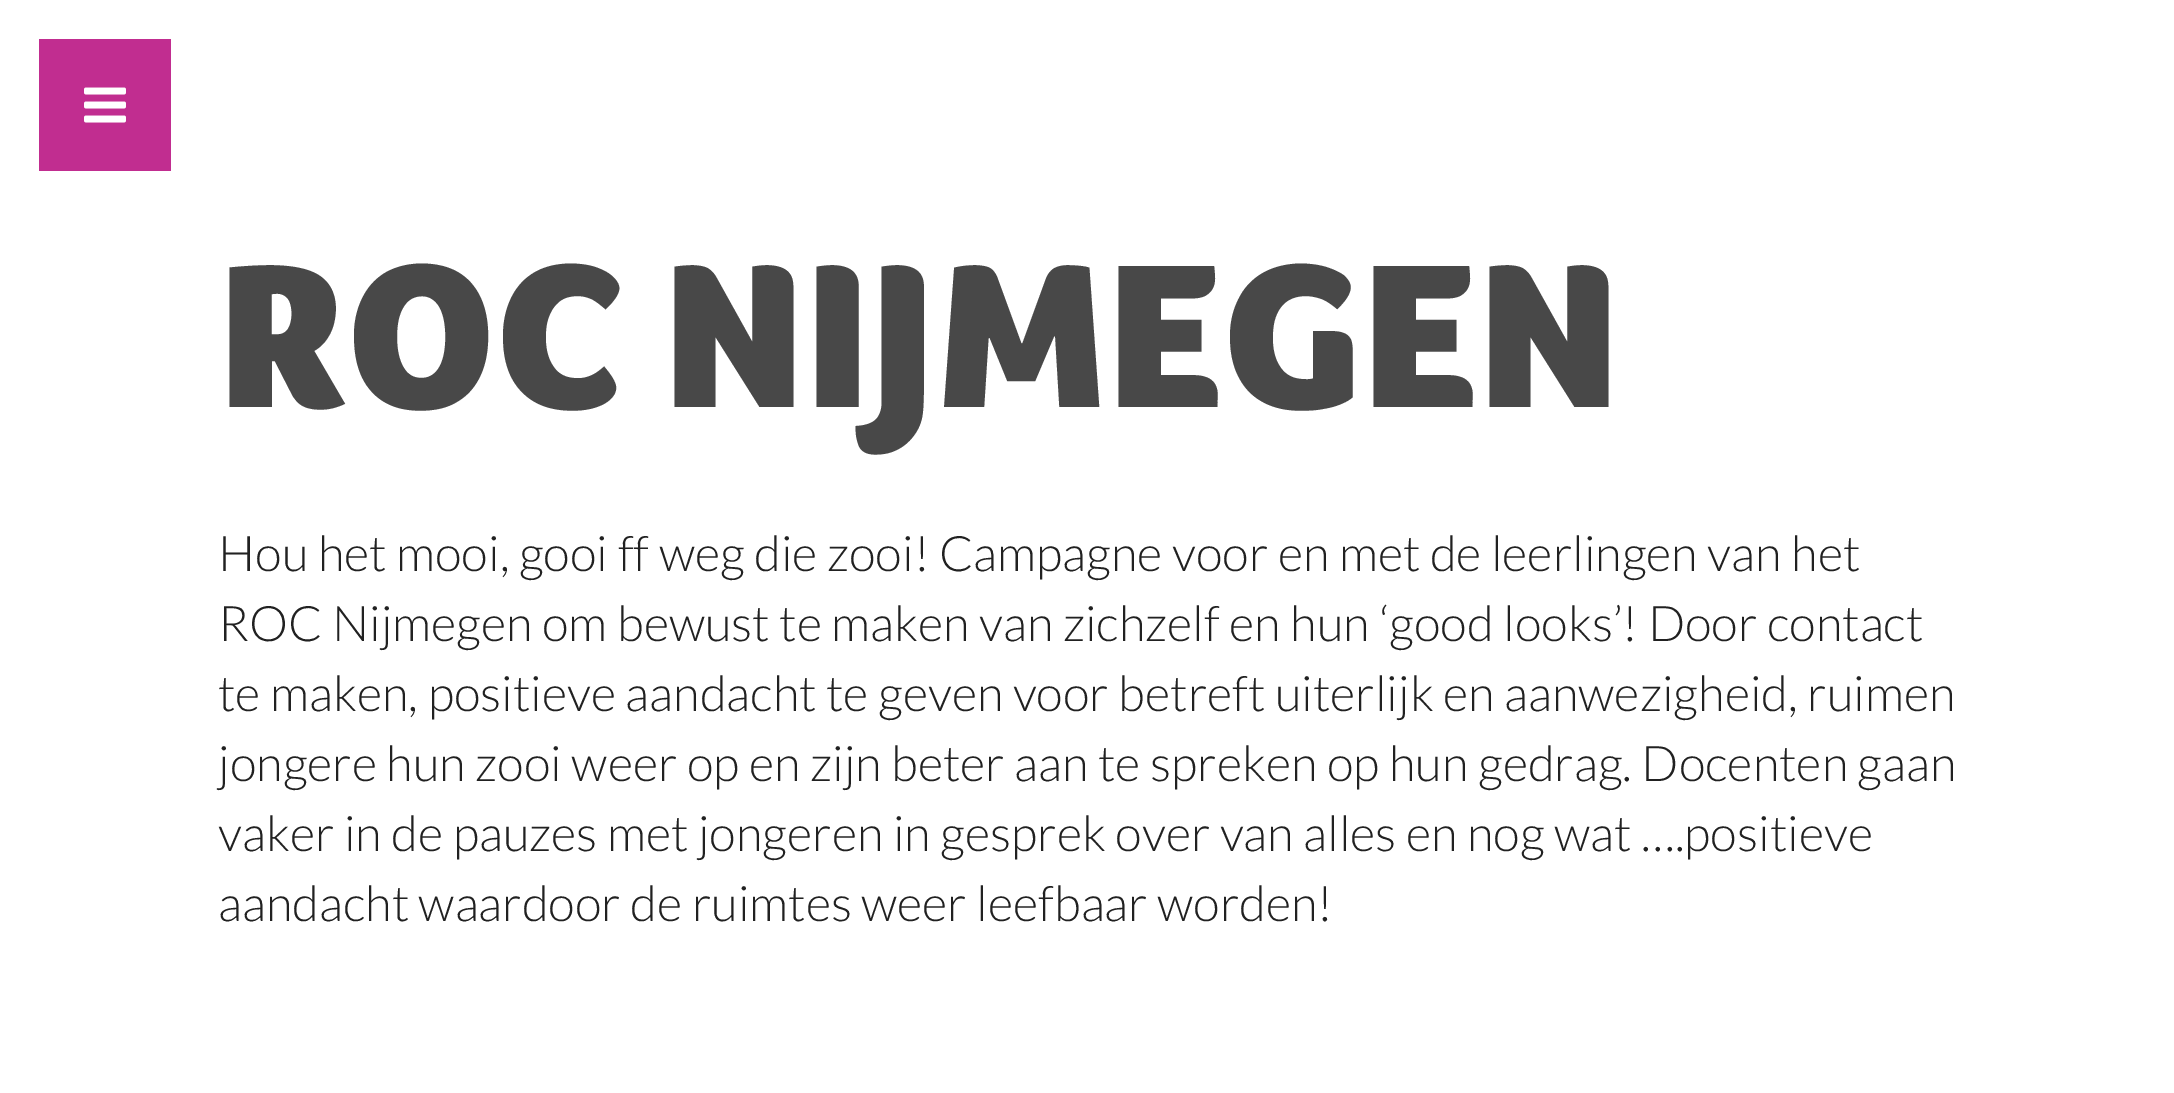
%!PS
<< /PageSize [2174 1093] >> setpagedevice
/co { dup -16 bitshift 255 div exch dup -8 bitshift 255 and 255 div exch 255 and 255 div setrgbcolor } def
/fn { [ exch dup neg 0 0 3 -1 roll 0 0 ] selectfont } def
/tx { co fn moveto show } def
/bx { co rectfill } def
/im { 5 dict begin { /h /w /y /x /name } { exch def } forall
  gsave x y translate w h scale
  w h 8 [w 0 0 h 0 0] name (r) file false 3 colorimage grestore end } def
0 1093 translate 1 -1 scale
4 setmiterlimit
0 0 2174 1093 16#FFFFFF bx
39 39 132 132 16#C12D90 bx
(media/1.raw) 84 87 42 36 im
(ROC NIJMEGEN) 218 407 /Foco-Black 210 16#484848 tx
(Hou het mooi, gooi ff weg die zooi! Campagne voor en met de leerlingen van het) 218 571 /Lato-Light 49 16#212121 tx
(ROC Nijmegen om bewust te maken van zichzelf en hun ‘good looks’! Door contact) 218 641 /Lato-Light 49 16#212121 tx
(te maken, positieve aandacht te geven voor betreft uiterlijk en aanwezigheid, ruimen) 218 711 /Lato-Light 49 16#212121 tx
(jongere hun zooi weer op en zijn beter aan te spreken op hun gedrag. Docenten gaan) 218 781 /Lato-Light 49 16#212121 tx
(vaker in de pauzes met jongeren in gesprek over van alles en nog wat ….positieve) 218 851 /Lato-Light 49 16#212121 tx
(aandacht waardoor de ruimtes weer leefbaar worden!) 218 921 /Lato-Light 49 16#212121 tx
showpage
